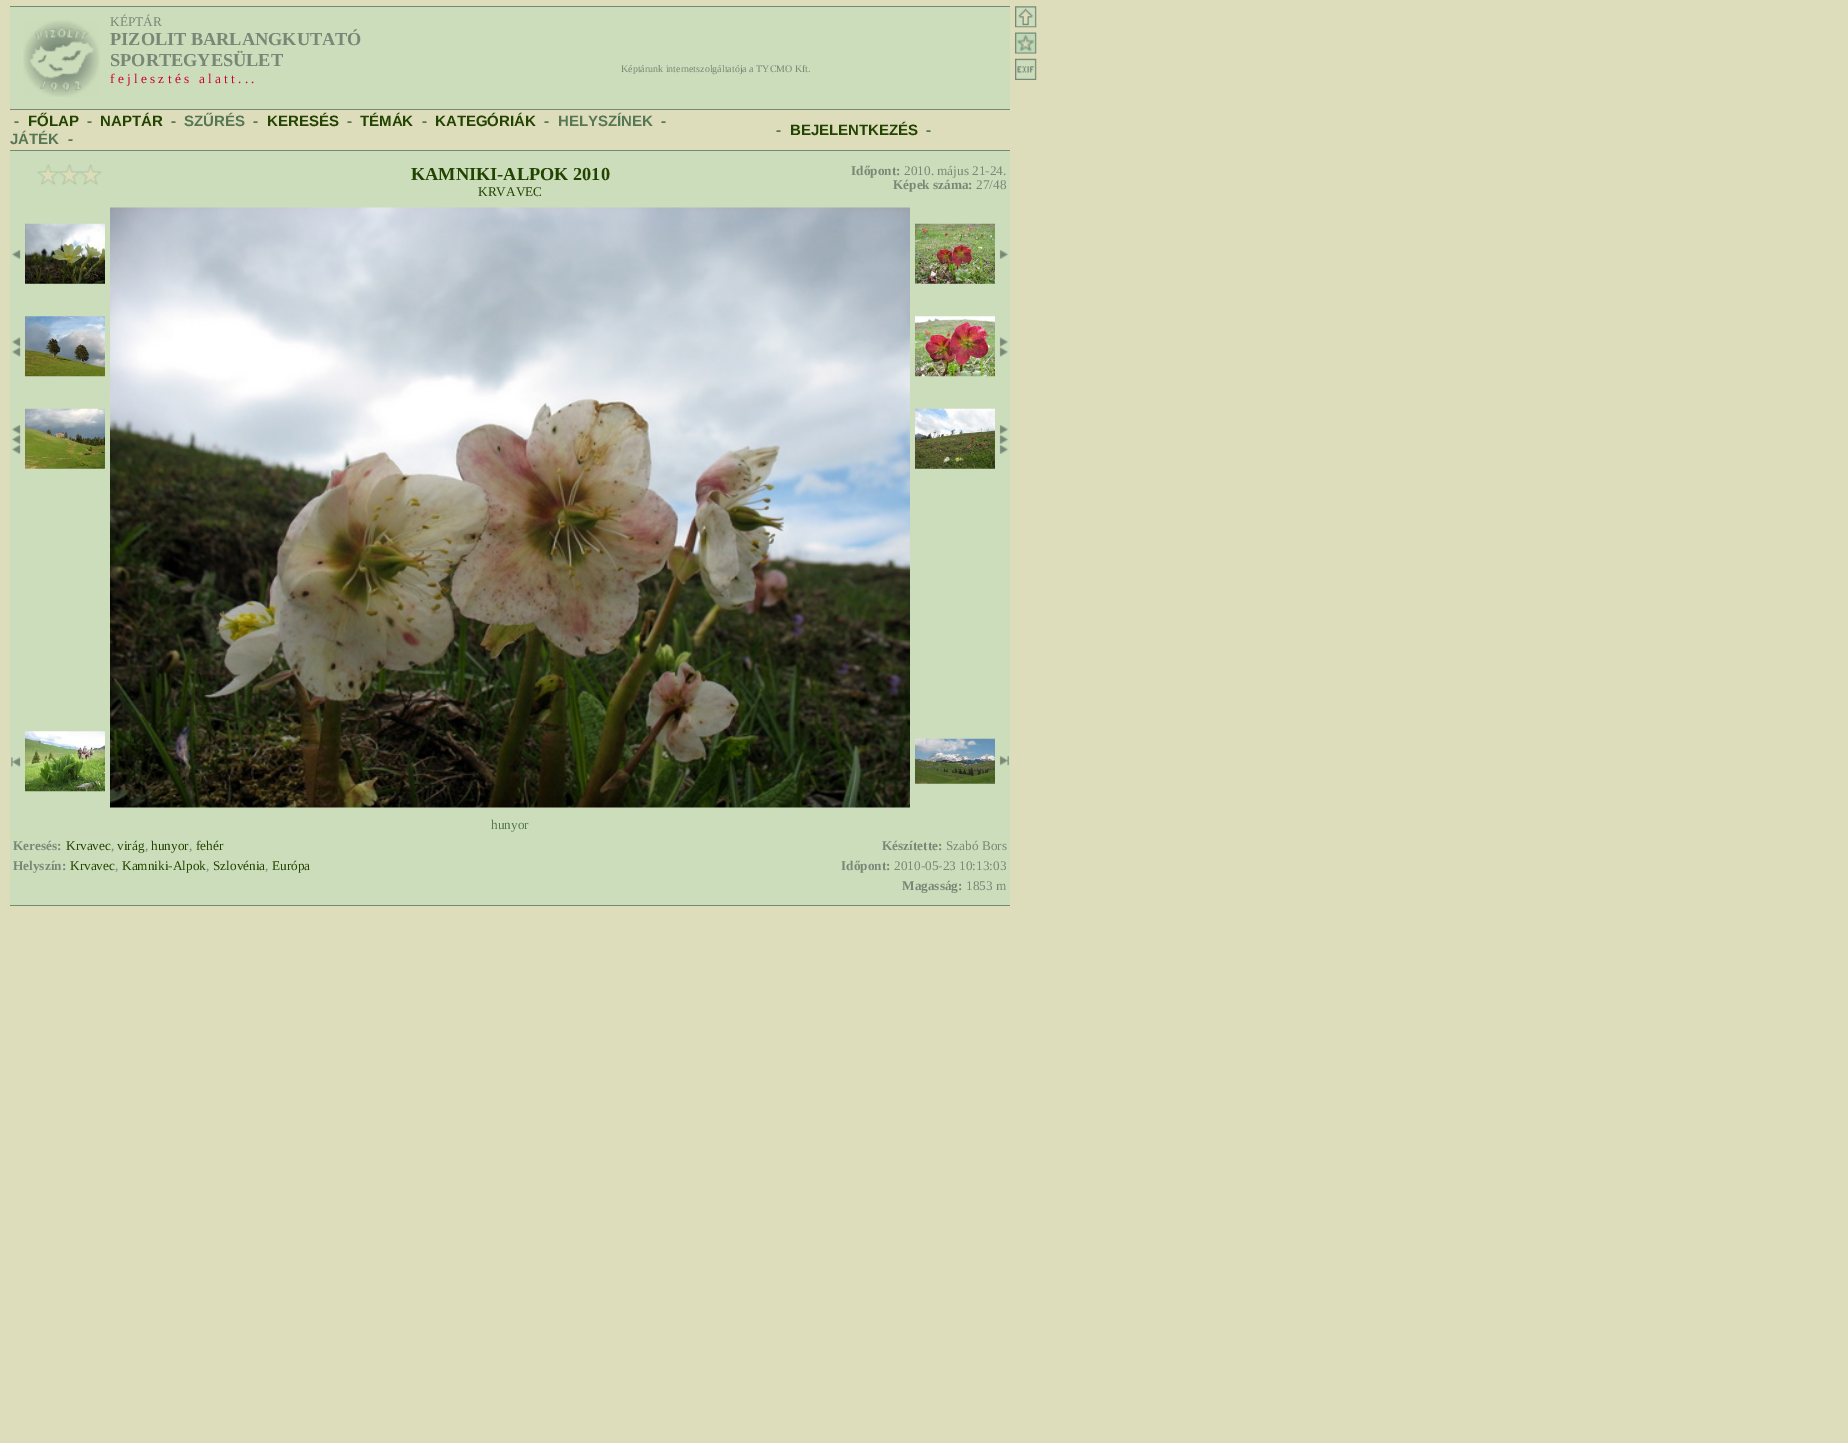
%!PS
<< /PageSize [1848 1443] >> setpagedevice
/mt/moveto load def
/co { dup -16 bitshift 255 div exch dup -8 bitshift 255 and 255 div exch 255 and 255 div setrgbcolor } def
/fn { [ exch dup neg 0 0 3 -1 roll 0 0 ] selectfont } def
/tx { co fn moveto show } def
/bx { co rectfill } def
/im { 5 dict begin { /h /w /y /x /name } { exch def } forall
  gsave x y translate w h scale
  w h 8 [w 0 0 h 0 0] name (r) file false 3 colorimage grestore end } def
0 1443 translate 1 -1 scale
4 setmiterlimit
0 0 1848 1443 16#DDDDBB bx
10 7 1000 898 16#CCDDBB bx
10 6 1000 1 16#778877 bx
10 905 1000 1 16#778877 bx
(media/1.raw) 23 20 77 77 im
10 110 1000 40 16#DDDDBB bx
10 109 1000 1 16#778877 bx
10 150 1000 1 16#778877 bx
(media/2.raw) 37 164 22 21 im
(media/3.raw) 59 164 21 21 im
(media/4.raw) 80 164 22 21 im
(media/5.raw) 12 250 9 9 im
(media/6.raw) 25 223 80 61 im
(media/7.raw) 12 337 9 20 im
(media/8.raw) 25 316 80 61 im
(media/9.raw) 12 425 9 29 im
(media/10.raw) 25 408 80 61 im
(media/11.raw) 11 757 10 10 im
(media/12.raw) 25 731 80 61 im
(media/13.raw) 110 207 800 601 im
(media/14.raw) 915 223 80 61 im
(media/15.raw) 999 250 9 9 im
(media/16.raw) 915 316 80 61 im
(media/17.raw) 999 337 9 20 im
(media/18.raw) 915 408 80 61 im
(media/19.raw) 999 425 9 29 im
(media/20.raw) 915 738 80 46 im
(media/21.raw) 999 756 10 10 im
(media/22.raw) 1015 6 22 22 im
1015 27 21 1 16#C3C7AA bx
(media/23.raw) 1015 32 22 22 im
1015 53 21 1 16#A1AF97 bx
(media/24.raw) 1015 58 22 22 im
(KÉPTÁR) 110 26 /LiberationSerif-Regular 13.25 16#778877 tx
(PIZOLIT BARLANGKUTATÓ) 110 45 /LiberationSerif-Bold 18.3 16#778877 tx
(SPORTEGYESÜLET) 110 66 /LiberationSerif-Bold 18.3 16#778877 tx
/LiberationSerif-Regular 13.25 fn
16#CC0033 co
110 83 mt 3.3 0 (fejlesztés alatt...) ashow
(Képtárunk internetszolgáltatója a TYCMO Kft.) 621 72 /LiberationSerif-Regular 10 16#778877 tx
(-) 14 126 /LiberationSans-Bold 15 16#557755 tx
(FŐLAP) 28 126 /LiberationSans-Bold 15 16#224400 tx
(-) 87 126 /LiberationSans-Bold 15 16#557755 tx
(NAPTÁR) 100 126 /LiberationSans-Bold 15 16#224400 tx
(-) 171 126 /LiberationSans-Bold 15 16#557755 tx
(SZŰRÉS) 184 126 /LiberationSans-Bold 15 16#557755 tx
(-) 253 126 /LiberationSans-Bold 15 16#557755 tx
(KERESÉS) 267 126 /LiberationSans-Bold 15 16#224400 tx
(-) 347 126 /LiberationSans-Bold 15 16#557755 tx
(TÉMÁK) 360 126 /LiberationSans-Bold 15 16#224400 tx
(-) 422 126 /LiberationSans-Bold 15 16#557755 tx
(KATEGÓRIÁK) 435 126 /LiberationSans-Bold 15 16#224400 tx
(-) 544 126 /LiberationSans-Bold 15 16#557755 tx
(HELYSZÍNEK) 558 126 /LiberationSans-Bold 15 16#557755 tx
(-) 661 126 /LiberationSans-Bold 15 16#557755 tx
(JÁTÉK) 10 144 /LiberationSans-Bold 15 16#557755 tx
(-) 68 144 /LiberationSans-Bold 15 16#557755 tx
(-) 776 135 /LiberationSans-Bold 15 16#557755 tx
(BEJELENTKEZÉS) 790 135 /LiberationSans-Bold 15 16#224400 tx
(-) 926 135 /LiberationSans-Bold 15 16#557755 tx
(KAMNIKI-ALPOK 2010) 411 180 /LiberationSerif-Bold 18.3 16#224400 tx
(KRVAVEC) 478 196 /LiberationSerif-Regular 13.25 16#224400 tx
(Időpont:) 851 175 /LiberationSerif-Bold 13.25 16#778877 tx
(2010. május 21-24.) 904 175 /LiberationSerif-Regular 13.25 16#778877 tx
(Képek száma:) 893 189 /LiberationSerif-Bold 13.25 16#778877 tx
(27/48) 976 189 /LiberationSerif-Regular 13.25 16#778877 tx
(hunyor) 491 829 /LiberationSerif-Regular 13.25 16#557755 tx
(Keresés:) 13 850 /LiberationSerif-Bold 13.25 16#778877 tx
(Krvavec) 66 850 /LiberationSerif-Regular 13.25 16#224400 tx
(,) 111 850 /LiberationSerif-Regular 13.25 16#778877 tx
(virág) 117 850 /LiberationSerif-Regular 13.25 16#224400 tx
(,) 145 850 /LiberationSerif-Regular 13.25 16#778877 tx
(hunyor) 151 850 /LiberationSerif-Regular 13.25 16#224400 tx
(,) 189 850 /LiberationSerif-Regular 13.25 16#778877 tx
(fehér) 196 850 /LiberationSerif-Regular 13.25 16#224400 tx
(Készítette:) 882 850 /LiberationSerif-Bold 13.25 16#778877 tx
(Szabó Bors) 946 850 /LiberationSerif-Regular 13.25 16#778877 tx
(Helyszín:) 13 870 /LiberationSerif-Bold 13.25 16#778877 tx
(Krvavec) 70 870 /LiberationSerif-Regular 13.25 16#224400 tx
(,) 115 870 /LiberationSerif-Regular 13.25 16#778877 tx
(Kamniki-Alpok) 122 870 /LiberationSerif-Regular 13.25 16#224400 tx
(,) 206 870 /LiberationSerif-Regular 13.25 16#778877 tx
(Szlovénia) 213 870 /LiberationSerif-Regular 13.25 16#224400 tx
(,) 265 870 /LiberationSerif-Regular 13.25 16#778877 tx
(Európa) 272 870 /LiberationSerif-Regular 13.25 16#224400 tx
(Időpont:) 841 870 /LiberationSerif-Bold 13.25 16#778877 tx
(2010-05-23 10:13:03) 894 870 /LiberationSerif-Regular 13.25 16#778877 tx
(Magasság:) 902 890 /LiberationSerif-Bold 13.25 16#778877 tx
(1853 m) 966 890 /LiberationSerif-Regular 13.25 16#778877 tx
showpage
